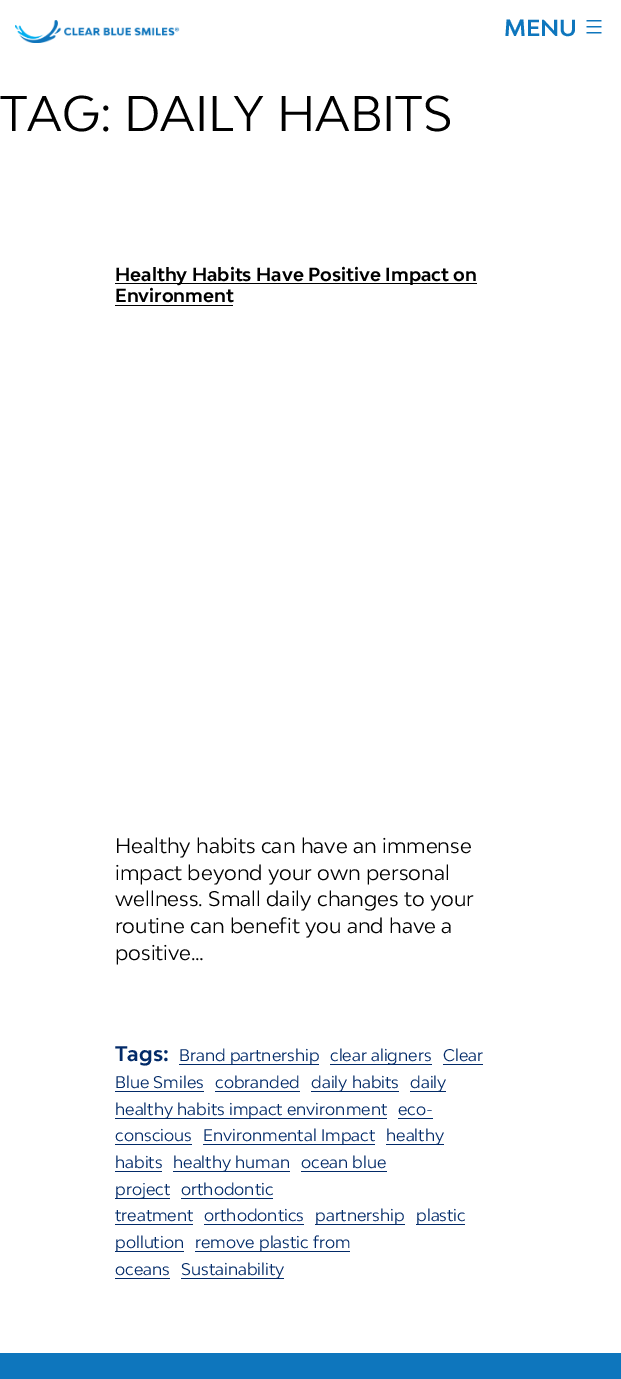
%!PS
<< /PageSize [621 1379] >> setpagedevice
/co { dup -16 bitshift 255 div exch dup -8 bitshift 255 and 255 div exch 255 and 255 div setrgbcolor } def
/fn { [ exch dup neg 0 0 3 -1 roll 0 0 ] selectfont } def
/tx { co fn moveto show } def
/bx { co rectfill } def
/im { 5 dict begin { /h /w /y /x /name } { exch def } forall
  gsave x y translate w h scale
  w h 8 [w 0 0 h 0 0] name (r) file false 3 colorimage grestore end } def
0 1379 translate 1 -1 scale
4 setmiterlimit
0 0 621 1379 16#FFFFFF bx
(media/1.raw) 15 20 165 23 im
(media/2.raw) 586 20 16 14 im
115 283 362 1 16#000000 bx
115 305 118 1 16#000000 bx
179 1064 140 1 16#022A68 bx
330 1064 102 1 16#022A68 bx
443 1064 40 1 16#022A68 bx
115 1091 89 1 16#022A68 bx
215 1091 85 1 16#022A68 bx
311 1091 88 1 16#022A68 bx
410 1091 36 1 16#022A68 bx
115 1118 272 1 16#022A68 bx
398 1118 35 1 16#022A68 bx
115 1144 77 1 16#022A68 bx
203 1144 172 1 16#022A68 bx
386 1144 58 1 16#022A68 bx
115 1171 47 1 16#022A68 bx
173 1171 117 1 16#022A68 bx
301 1171 86 1 16#022A68 bx
115 1198 55 1 16#022A68 bx
181 1198 92 1 16#022A68 bx
115 1224 78 1 16#022A68 bx
204 1224 100 1 16#022A68 bx
315 1224 90 1 16#022A68 bx
416 1224 49 1 16#022A68 bx
115 1251 69 1 16#022A68 bx
195 1251 155 1 16#022A68 bx
115 1278 55 1 16#022A68 bx
181 1278 103 1 16#022A68 bx
0 1353 621 26 16#0E76BD bx
(MENU) 504 36 /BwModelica-Bold 22 16#0E76BD tx
(TAG: DAILY HABITS) 0 131 /BwModelica-Regular 47.4 16#000000 tx
(Healthy Habits Have Positive Impact on) 115 281 /BwModelica-Bold 18 16#000000 tx
(Environment) 115 302 /BwModelica-Bold 18 16#000000 tx
(Healthy habits can have an immense) 115 853 /BwModelica-Regular 20 16#000000 tx
(impact beyond your own personal) 115 880 /BwModelica-Regular 20 16#000000 tx
(wellness. Small daily changes to your) 115 906 /BwModelica-Regular 20 16#000000 tx
(routine can benefit you and have a) 115 933 /BwModelica-Regular 20 16#000000 tx
(positive…) 115 960 /BwModelica-Regular 20 16#000000 tx
(Tags:) 115 1061 /BwModelica-Bold 20 16#022A68 tx
(Brand partnership) 179 1061 /BwModelica-Regular 16 16#022A68 tx
(clear aligners) 330 1061 /BwModelica-Regular 16 16#022A68 tx
(Clear) 443 1061 /BwModelica-Regular 16 16#022A68 tx
(Blue Smiles) 115 1088 /BwModelica-Regular 16 16#022A68 tx
(cobranded) 215 1088 /BwModelica-Regular 16 16#022A68 tx
(daily habits) 311 1088 /BwModelica-Regular 16 16#022A68 tx
(daily) 410 1088 /BwModelica-Regular 16 16#022A68 tx
(healthy habits impact environment) 115 1115 /BwModelica-Regular 16 16#022A68 tx
(eco-) 398 1115 /BwModelica-Regular 16 16#022A68 tx
(conscious) 115 1141 /BwModelica-Regular 16 16#022A68 tx
(Environmental Impact) 203 1141 /BwModelica-Regular 16 16#022A68 tx
(healthy) 386 1141 /BwModelica-Regular 16 16#022A68 tx
(habits) 115 1168 /BwModelica-Regular 16 16#022A68 tx
(healthy human) 173 1168 /BwModelica-Regular 16 16#022A68 tx
(ocean blue) 301 1168 /BwModelica-Regular 16 16#022A68 tx
(project) 115 1195 /BwModelica-Regular 16 16#022A68 tx
(orthodontic) 181 1195 /BwModelica-Regular 16 16#022A68 tx
(treatment) 115 1221 /BwModelica-Regular 16 16#022A68 tx
(orthodontics) 204 1221 /BwModelica-Regular 16 16#022A68 tx
(partnership) 315 1221 /BwModelica-Regular 16 16#022A68 tx
(plastic) 416 1221 /BwModelica-Regular 16 16#022A68 tx
(pollution) 115 1248 /BwModelica-Regular 16 16#022A68 tx
(remove plastic from) 195 1248 /BwModelica-Regular 16 16#022A68 tx
(oceans) 115 1275 /BwModelica-Regular 16 16#022A68 tx
(Sustainability) 181 1275 /BwModelica-Regular 16 16#022A68 tx
showpage
